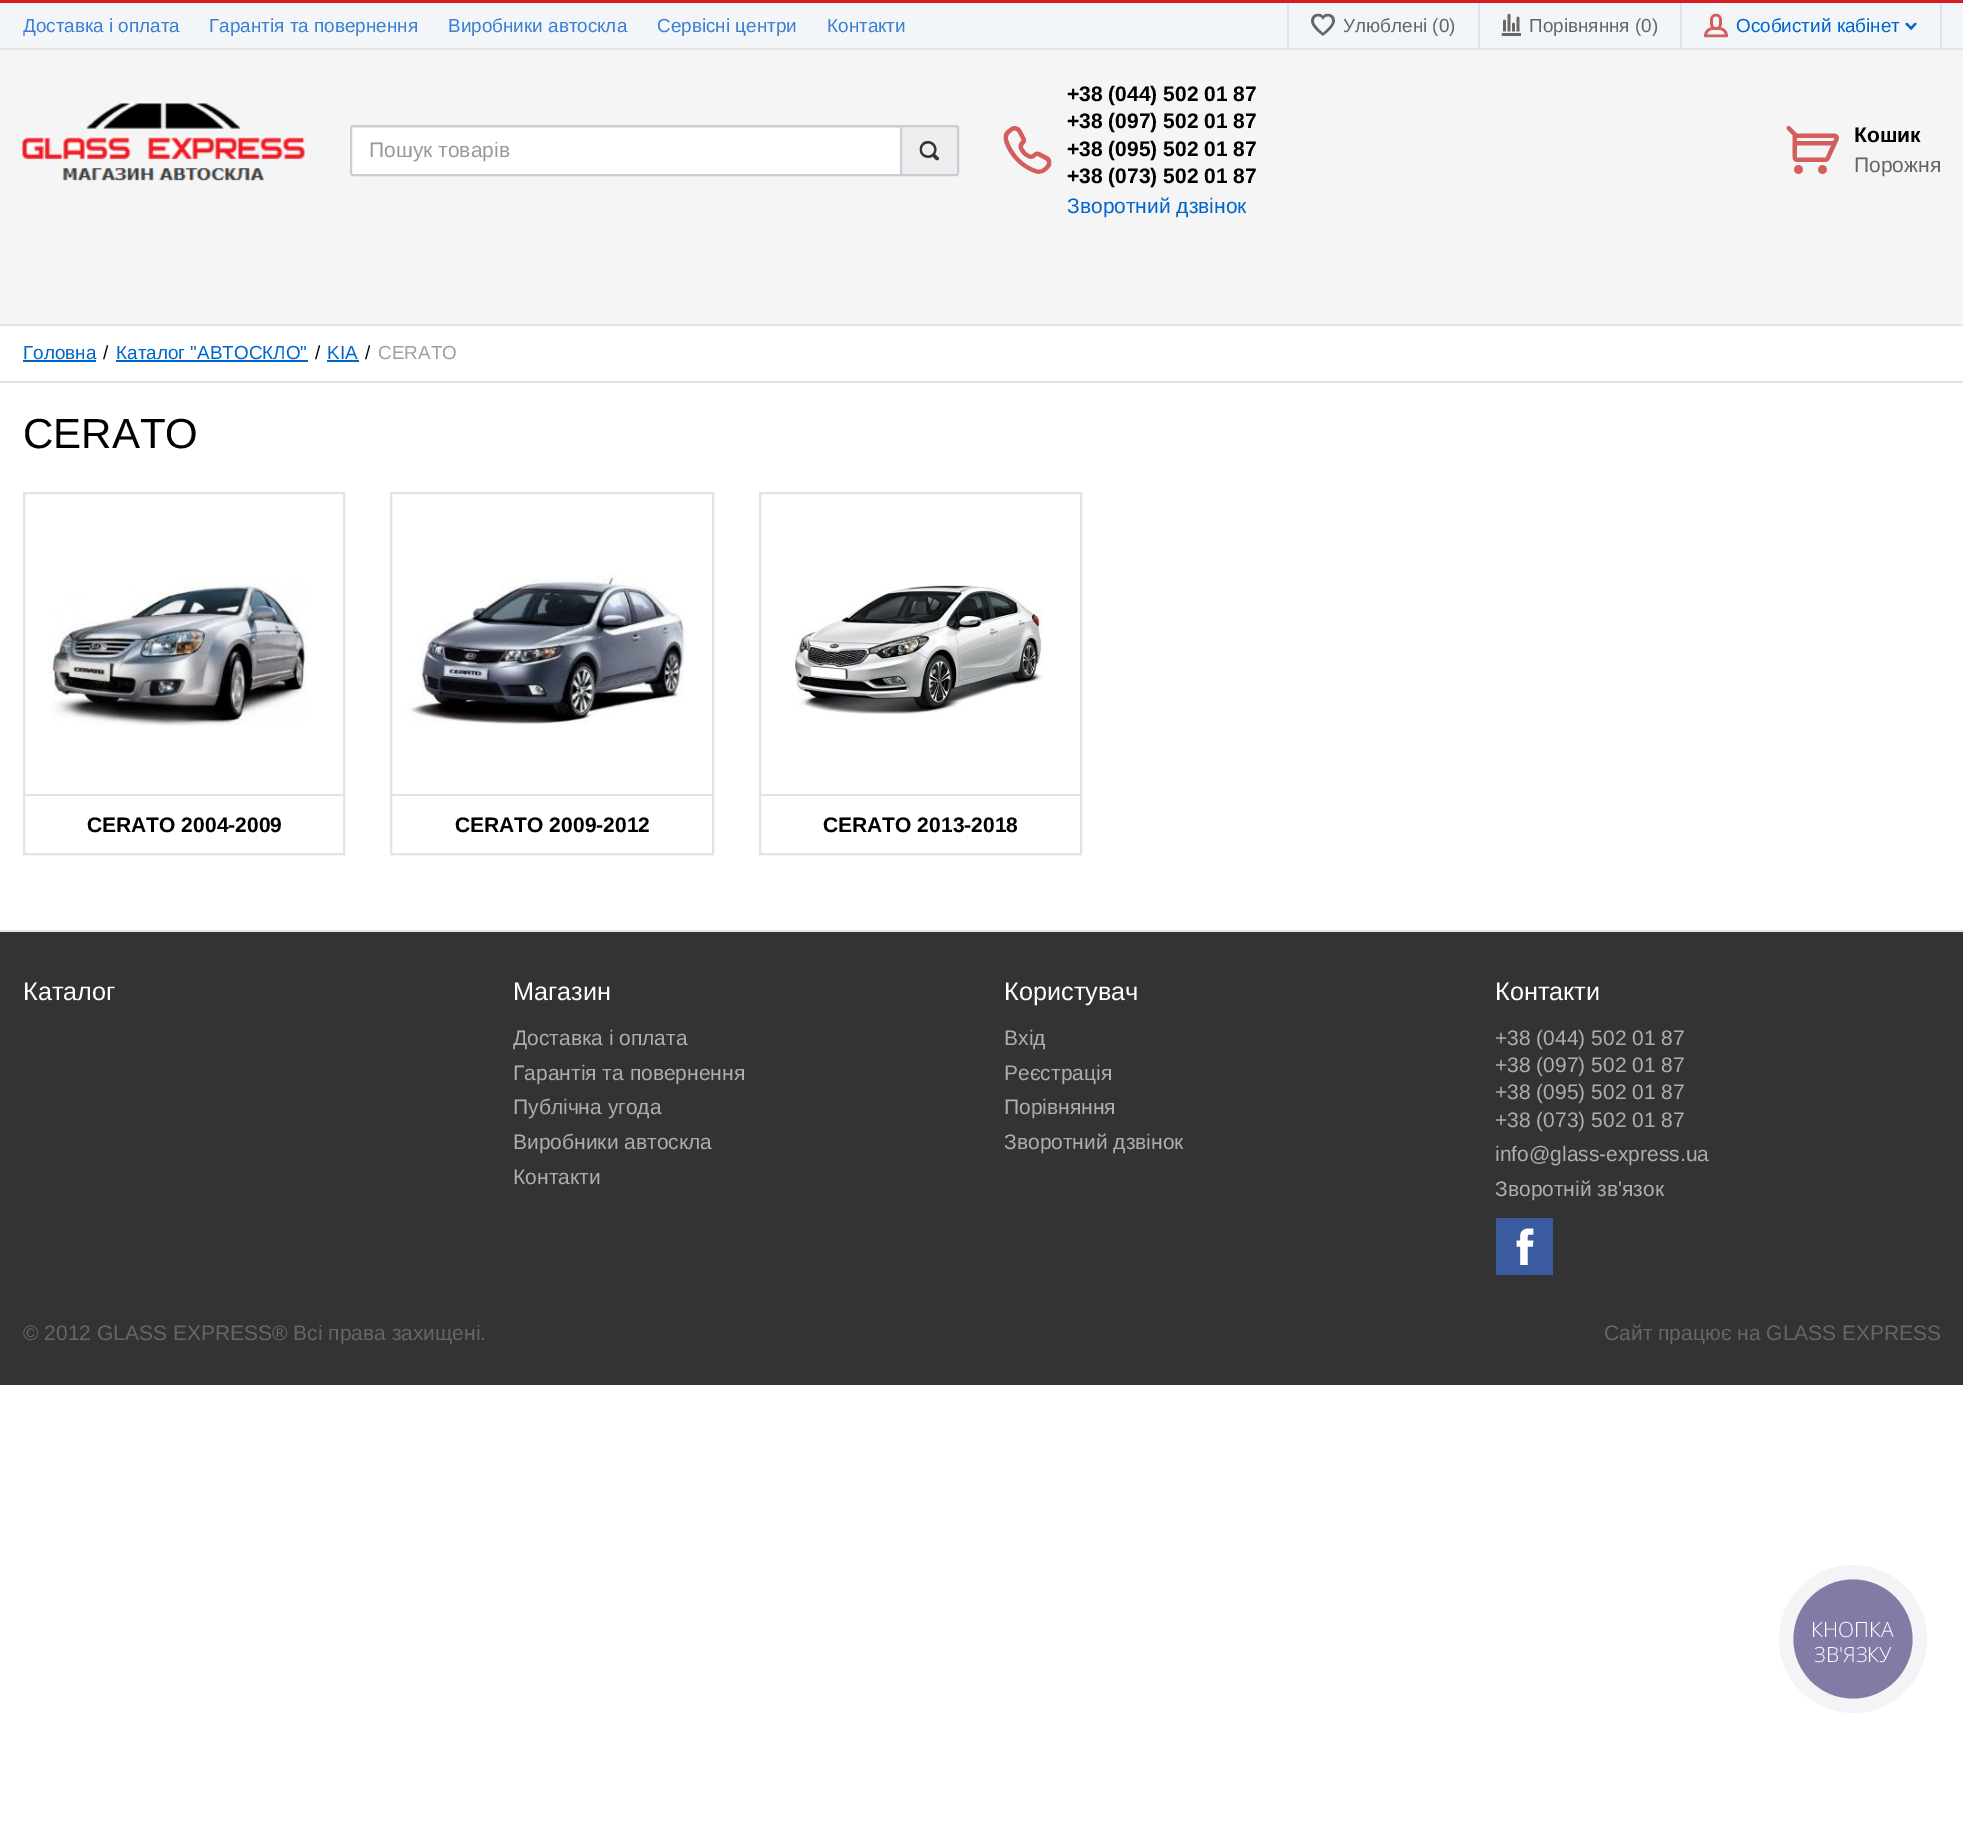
%!PS
<< /PageSize [1963 1839] >> setpagedevice
/mt/moveto load def
/li/lineto load def
/ct/curveto load def
/cp/closepath load def
/fl/fill load def
/st/stroke load def
/gs/gsave load def
/gr/grestore load def
/lw/setlinewidth load def
/co { dup -16 bitshift 255 div exch dup -8 bitshift 255 and 255 div exch 255 and 255 div setrgbcolor } def
/fn { [ exch dup neg 0 0 3 -1 roll 0 0 ] selectfont } def
/tx { co fn moveto show } def
/bx { co rectfill } def
/ci { newpath 0 360 arc closepath } def
/im { 5 dict begin { /h /w /y /x /name } { exch def } forall
  gsave x y translate w h scale
  w h 8 [w 0 0 h 0 0] name (r) file false 3 colorimage grestore end } def
0 1839 translate 1 -1 scale
4 setmiterlimit
0 0 1963 1839 16#FFFFFF bx
0 50 1963 274 16#F5F5F5 bx
0 324 1963 2 16#DFE4EB bx
0 3 1963 45 16#F2F6F9 bx
0 0 1963 3 16#D71C23 bx
0 48 1963 2 16#DFE4EB bx
1478 3 2 45 16#DFE4EB bx
1287 3 2 45 16#DFE4EB bx
(media/1.raw) 1311 13 24 23 im
1680 3 2 45 16#DFE4EB bx
(media/2.raw) 1501 13 20 23 im
1940 3 2 45 16#DFE4EB bx
(media/3.raw) 1704 13 24 25 im
(media/4.raw) 1905 22 12 8 im
(media/5.raw) 22 103 283 78 im
16#FFFFFF co
353 125 mt 902 125 li 902 176 li 353 176 li 351.5 176 350 174.5 350 173 ct 350 128 li 350 126.5 351.5 125 353 125 ct cp fl
16#ECECEC co
352 128 mt 900 128 li 900 126 li 352 126 li 351 126 351 128 351 129 ct cp fl
16#C8CFD9 co
2 lw
353 126 mt 901 126 li 901 175 li 353 175 li 352 175 351 174 351 173 ct 351 128 li 351 127 352 126 353 126 ct cp st
16#EEEEEE co
901 126 mt 956 126 li 957 126 958 127 958 128 ct 958 173 li 958 174 957 175 956 175 ct 901 175 li cp gs fl gr
16#C8CFD9 co
st
(media/6.raw) 919 141 20 20 im
(media/7.raw) 1003 126 49 48 im
(media/8.raw) 1786 126 53 48 im
0 381 1963 2 16#DFE4EB bx
23 360 73 2 16#0066CC bx
116 360 192 2 16#0066CC bx
327 360 32 2 16#0066CC bx
16#DFE4EB co
24 493 320 361 rectstroke
(media/9.raw) 48 579 259 147 im
24 794 320 2 16#DFE4EB bx
391 493 322 361 rectstroke
(media/10.raw) 407 572 281 153 im
392 794 321 2 16#DFE4EB bx
760 493 321 361 rectstroke
(media/11.raw) 793 585 250 129 im
761 794 319 2 16#DFE4EB bx
0 930 1963 2 16#DFE4EB bx
0 932 1963 453 16#333333 bx
1496 1218 57 57 16#3A5BA0 bx
(media/12.raw) 1516 1228 18 37 im
16#F2F4F5 co
1853 1639 74 ci fl
16#837BA6 co
1853 1639 59.5 ci fl
(Доставка і оплата) 23 32 /LiberationSans-Regular 18.9 16#3E7FD2 tx
(Гарантія та повернення) 209 32 /LiberationSans-Regular 18.9 16#3E7FD2 tx
(Виробники автоскла) 448 32 /LiberationSans-Regular 18.9 16#3E7FD2 tx
(Сервісні центри) 657 32 /LiberationSans-Regular 18.9 16#3E7FD2 tx
(Контакти) 827 32 /LiberationSans-Regular 18.9 16#3E7FD2 tx
(Улюблені \(0\)) 1343 32 /LiberationSans-Regular 18.9 16#666666 tx
(Порівняння \(0\)) 1529 32 /LiberationSans-Regular 18.9 16#666666 tx
(Особистий кабінет) 1736 32 /LiberationSans-Regular 18.9 16#0066CC tx
(Пошук товарів) 369 157 /LiberationSans-Regular 21 16#999999 tx
(+38 \(044\) 502 01 87) 1067 101 /LiberationSans-Bold 21 16#000000 tx
(+38 \(097\) 502 01 87) 1067 128 /LiberationSans-Bold 21 16#000000 tx
(+38 \(095\) 502 01 87) 1067 156 /LiberationSans-Bold 21 16#000000 tx
(+38 \(073\) 502 01 87) 1067 183 /LiberationSans-Bold 21 16#000000 tx
(Зворотний дзвінок) 1067 213 /LiberationSans-Regular 21 16#0066CC tx
(Кошик) 1854 142 /LiberationSans-Bold 21 16#000000 tx
(Порожня) 1854 172 /LiberationSans-Regular 21 16#666666 tx
(Головна) 23 359 /LiberationSans-Regular 18.9 16#0066CC tx
(/) 103 359 /LiberationSans-Regular 18.9 16#000000 tx
(Каталог "АВТОСКЛО") 116 359 /LiberationSans-Regular 18.9 16#0066CC tx
(/) 315 359 /LiberationSans-Regular 18.9 16#000000 tx
(KIA) 327 359 /LiberationSans-Regular 18.9 16#0066CC tx
(/) 365 359 /LiberationSans-Regular 18.9 16#000000 tx
(CERATO) 378 359 /LiberationSans-Regular 18.9 16#9AA1AB tx
(CERATO) 23 448 /LiberationSans-Regular 42 16#000000 tx
(CERATO 2004-2009) 87 832 /LiberationSans-Bold 21 16#000000 tx
(CERATO 2009-2012) 455 832 /LiberationSans-Bold 21 16#000000 tx
(CERATO 2013-2018) 823 832 /LiberationSans-Bold 21 16#000000 tx
(Каталог) 23 1000 /LiberationSans-Regular 25.25 16#FFFFFF tx
(Магазин) 513 1000 /LiberationSans-Regular 25.25 16#FFFFFF tx
(Доставка і оплата) 513 1045 /LiberationSans-Regular 21 16#AEAEAE tx
(Гарантія та повернення) 513 1080 /LiberationSans-Regular 21 16#AEAEAE tx
(Публічна угода) 513 1114 /LiberationSans-Regular 21 16#AEAEAE tx
(Виробники автоскла) 513 1149 /LiberationSans-Regular 21 16#AEAEAE tx
(Контакти) 513 1184 /LiberationSans-Regular 21 16#AEAEAE tx
(Користувач) 1004 1000 /LiberationSans-Regular 25.25 16#FFFFFF tx
(Вхід) 1004 1045 /LiberationSans-Regular 21 16#AEAEAE tx
(Реєстрація) 1004 1080 /LiberationSans-Regular 21 16#AEAEAE tx
(Порівняння) 1004 1114 /LiberationSans-Regular 21 16#AEAEAE tx
(Зворотний дзвінок) 1004 1149 /LiberationSans-Regular 21 16#AEAEAE tx
(Контакти) 1495 1000 /LiberationSans-Regular 25.25 16#FFFFFF tx
(+38 \(044\) 502 01 87) 1495 1045 /LiberationSans-Regular 21 16#AEAEAE tx
(+38 \(097\) 502 01 87) 1495 1072 /LiberationSans-Regular 21 16#AEAEAE tx
(+38 \(095\) 502 01 87) 1495 1099 /LiberationSans-Regular 21 16#AEAEAE tx
(+38 \(073\) 502 01 87) 1495 1127 /LiberationSans-Regular 21 16#AEAEAE tx
(info@glass-express.ua) 1495 1161 /LiberationSans-Regular 21 16#AEAEAE tx
(Зворотній зв'язок) 1495 1196 /LiberationSans-Regular 21 16#AEAEAE tx
(© 2012 GLASS EXPRESS® Всі права захищені.) 23 1340 /LiberationSans-Regular 21 16#666666 tx
(Сайт працює на GLASS EXPRESS) 1604 1340 /LiberationSans-Regular 21 16#666666 tx
(КНОПКА) 1811 1637 /OpenSans-Light 21 16#FFFFFF tx
(ЗВ'ЯЗКУ) 1814 1662 /OpenSans-Light 21 16#FFFFFF tx
showpage
